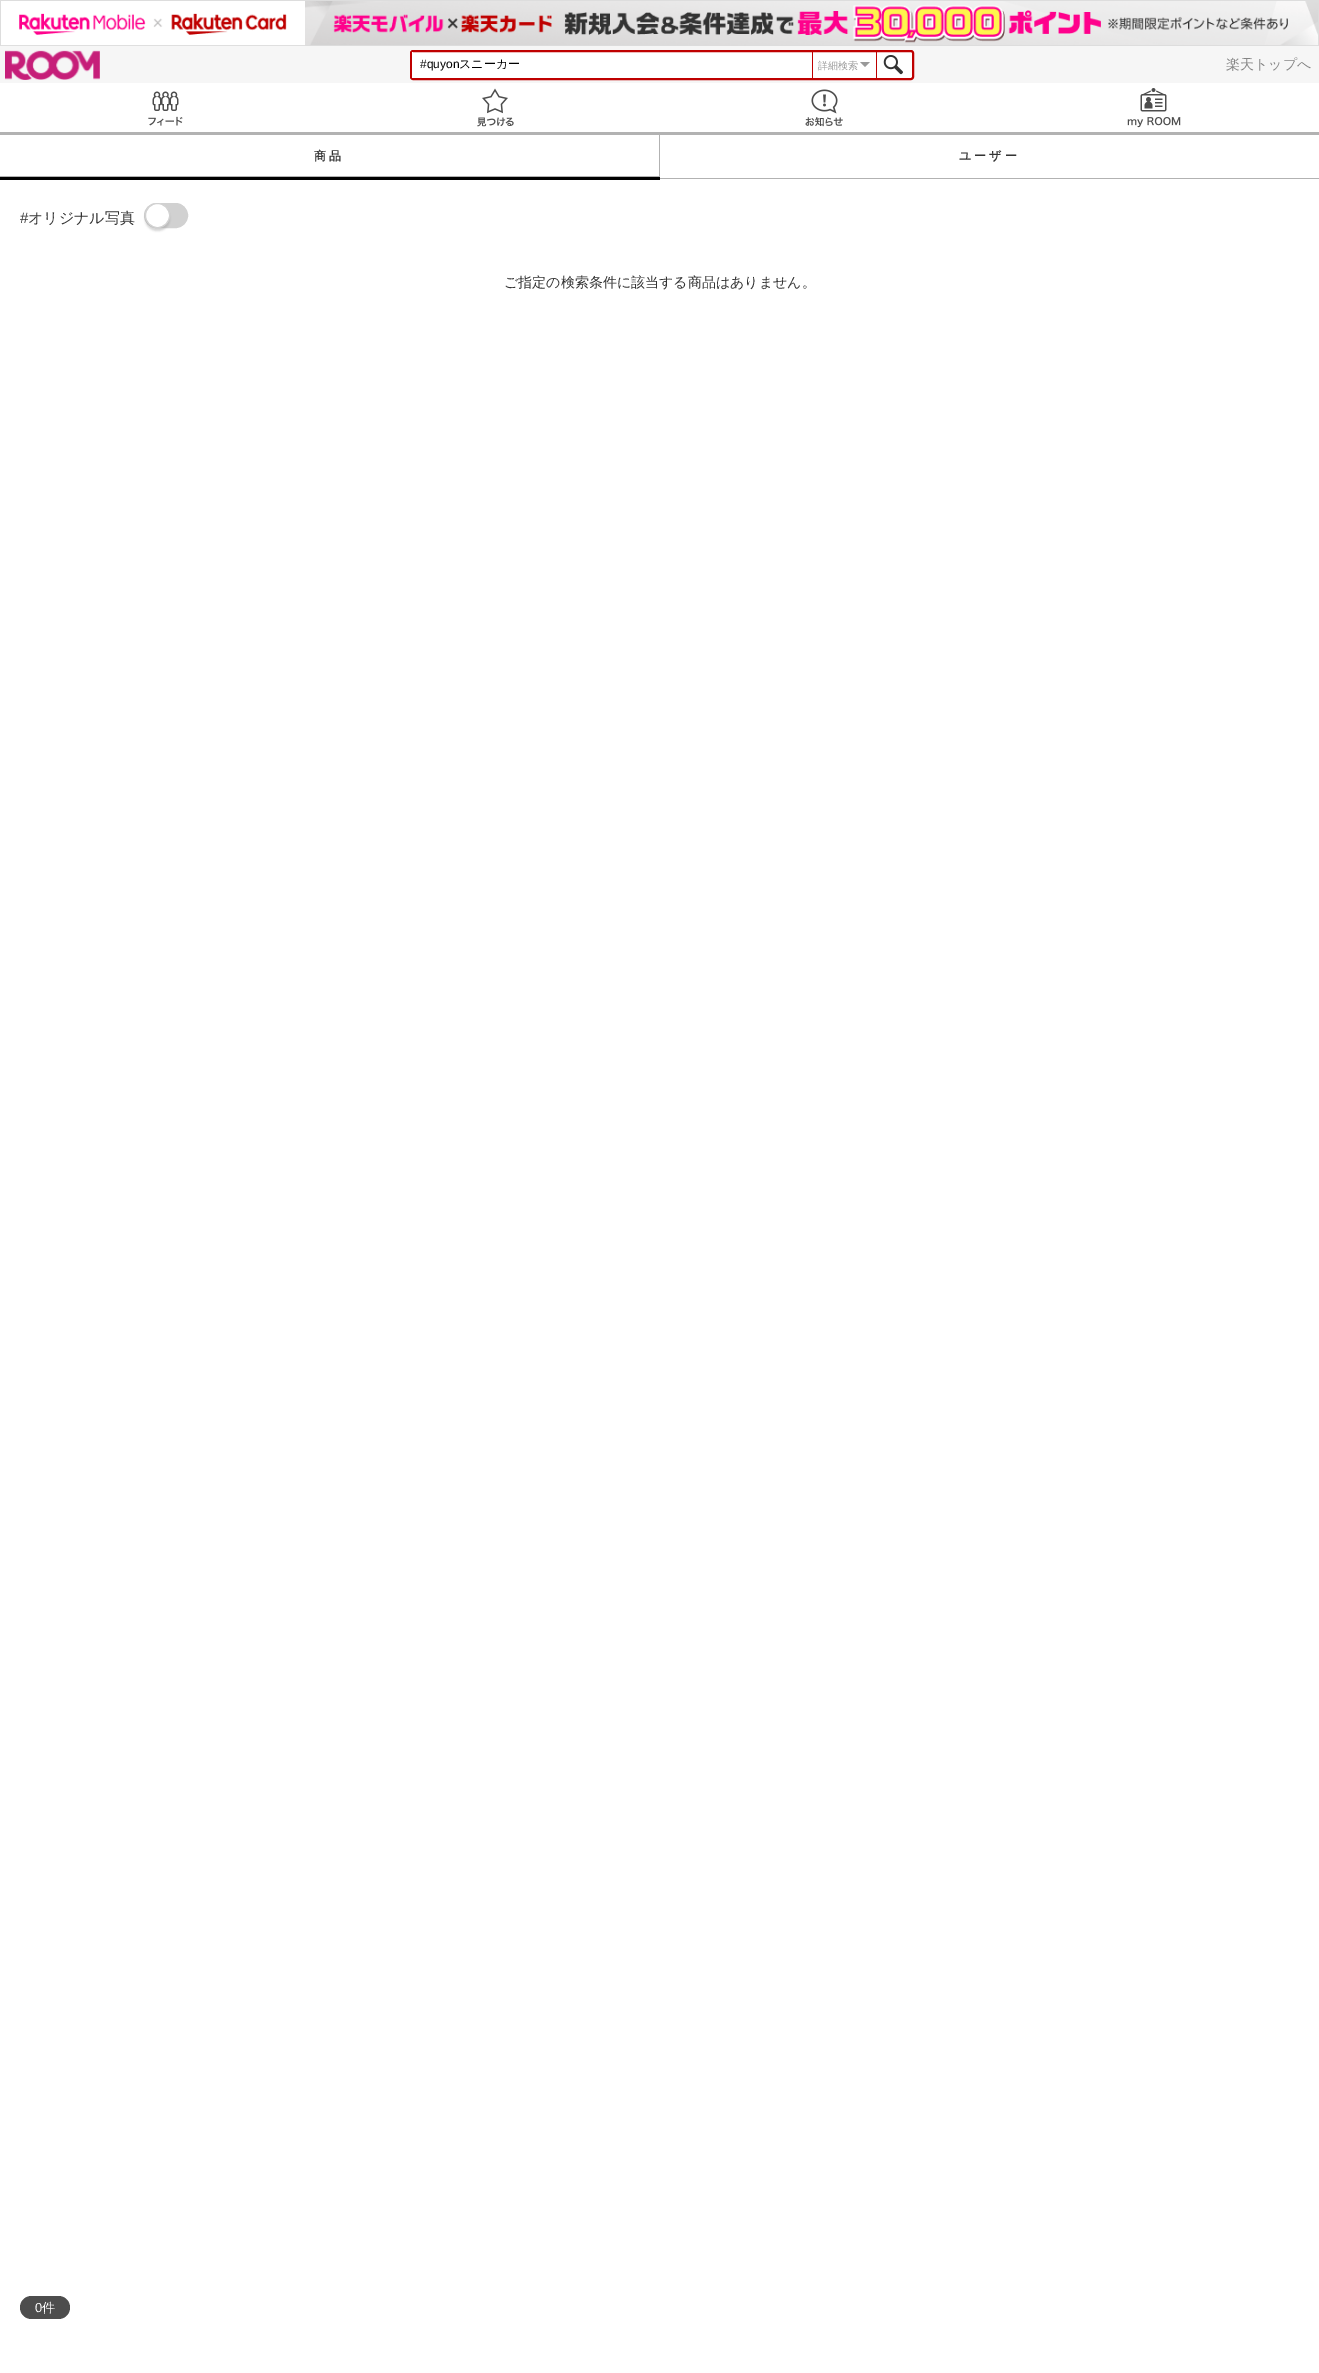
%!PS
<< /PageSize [1319 2373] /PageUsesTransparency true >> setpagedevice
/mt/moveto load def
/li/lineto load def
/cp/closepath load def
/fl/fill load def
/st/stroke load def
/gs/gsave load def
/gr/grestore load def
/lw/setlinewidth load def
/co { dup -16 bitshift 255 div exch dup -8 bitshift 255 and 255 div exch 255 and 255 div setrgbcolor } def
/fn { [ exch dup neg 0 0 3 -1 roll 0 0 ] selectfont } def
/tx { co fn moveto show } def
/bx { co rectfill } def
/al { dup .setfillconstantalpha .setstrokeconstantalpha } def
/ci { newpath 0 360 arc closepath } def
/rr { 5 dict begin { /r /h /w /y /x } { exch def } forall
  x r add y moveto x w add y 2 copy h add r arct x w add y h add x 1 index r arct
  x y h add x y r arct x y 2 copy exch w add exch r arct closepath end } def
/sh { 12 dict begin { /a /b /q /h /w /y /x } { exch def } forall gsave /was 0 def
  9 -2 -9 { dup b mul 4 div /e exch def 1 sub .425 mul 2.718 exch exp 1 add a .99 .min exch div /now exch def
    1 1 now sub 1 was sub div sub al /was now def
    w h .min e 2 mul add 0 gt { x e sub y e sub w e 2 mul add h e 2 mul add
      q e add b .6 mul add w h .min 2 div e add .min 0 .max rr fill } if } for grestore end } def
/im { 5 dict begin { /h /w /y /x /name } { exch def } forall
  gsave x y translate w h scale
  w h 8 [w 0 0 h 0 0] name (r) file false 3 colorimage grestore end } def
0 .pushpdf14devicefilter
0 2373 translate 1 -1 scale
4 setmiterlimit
0 0 1319 2373 16#FFFFFF bx
(media/1.raw) 0 0 1319 46 im
0 46 1319 37 16#F6F6F6 bx
16#FFFFFF co
411 51 502 28 2 rr gs fl gr
16#BF0000 co
2 lw
st
412 52 1 26 16#FFFFFF bx
812 52 1 26 16#BF0000 bx
16#999999 co
860 62 mt 870 62 li 865 67 li cp fl
876 52 1 26 16#BF0000 bx
(media/2.raw) 883 55 20 20 im
(media/3.raw) 5 50 95 30 im
(media/4.raw) 477 88 37 39 im
660 132 659 3 16#B2B2B2 bx
(media/5.raw) 1127 88 54 40 im
0 132 660 3 16#B2B2B2 bx
(media/6.raw) 148 91 35 35 im
(media/7.raw) 805 89 38 38 im
0 177 660 3 16#000000 bx
659 135 1 42 16#B2B2B2 bx
0 176 660 1 16#B2B2B2 bx
660 178 659 1 16#B2B2B2 bx
16#D1D1D1 co
144.5 203.5 43 24 12 rr gs fl gr
1 lw
st
16#999999 co
145 206 25 25 12.5 1 .4 sh
16#FFFFFF co
157.5 215.5 12 ci gs fl gr
16#D1D1D1 co
st
16#4D4D4D co
20 2296 50 23 11.5 rr fl
(#quyon) 420 68 /LiberationSans-Regular 12 16#000000 tx
(スニーカー) 459 68 /WenQuanYiZenHei-Medium 12 16#000000 tx
(詳細検索) 818 69 /WenQuanYiZenHei-Medium 10 16#999999 tx
(楽天トップへ) 1226 69 /WenQuanYiZenHei-Medium 14 16#848484 tx
/WenQuanYiZenHei-Bold 12 fn
16#333333 co
314 160 mt 3 0 (商品) ashow
959 160 mt 3 0 (ユーザー) ashow
(#) 20 223 /LiberationSans-Regular 15 16#333333 tx
(オリジナル写真) 28 223 /WenQuanYiZenHei-Medium 15 16#333333 tx
(ご指定の検索条件に該当する商品はありません。) 504 287 /WenQuanYiZenHei-Medium 14 16#333333 tx
(0) 35 2312 /LiberationSans-Regular 13 16#FFFFFF tx
(件) 42 2312 /WenQuanYiZenHei-Medium 13 16#FFFFFF tx
.poppdf14devicefilter showpage
